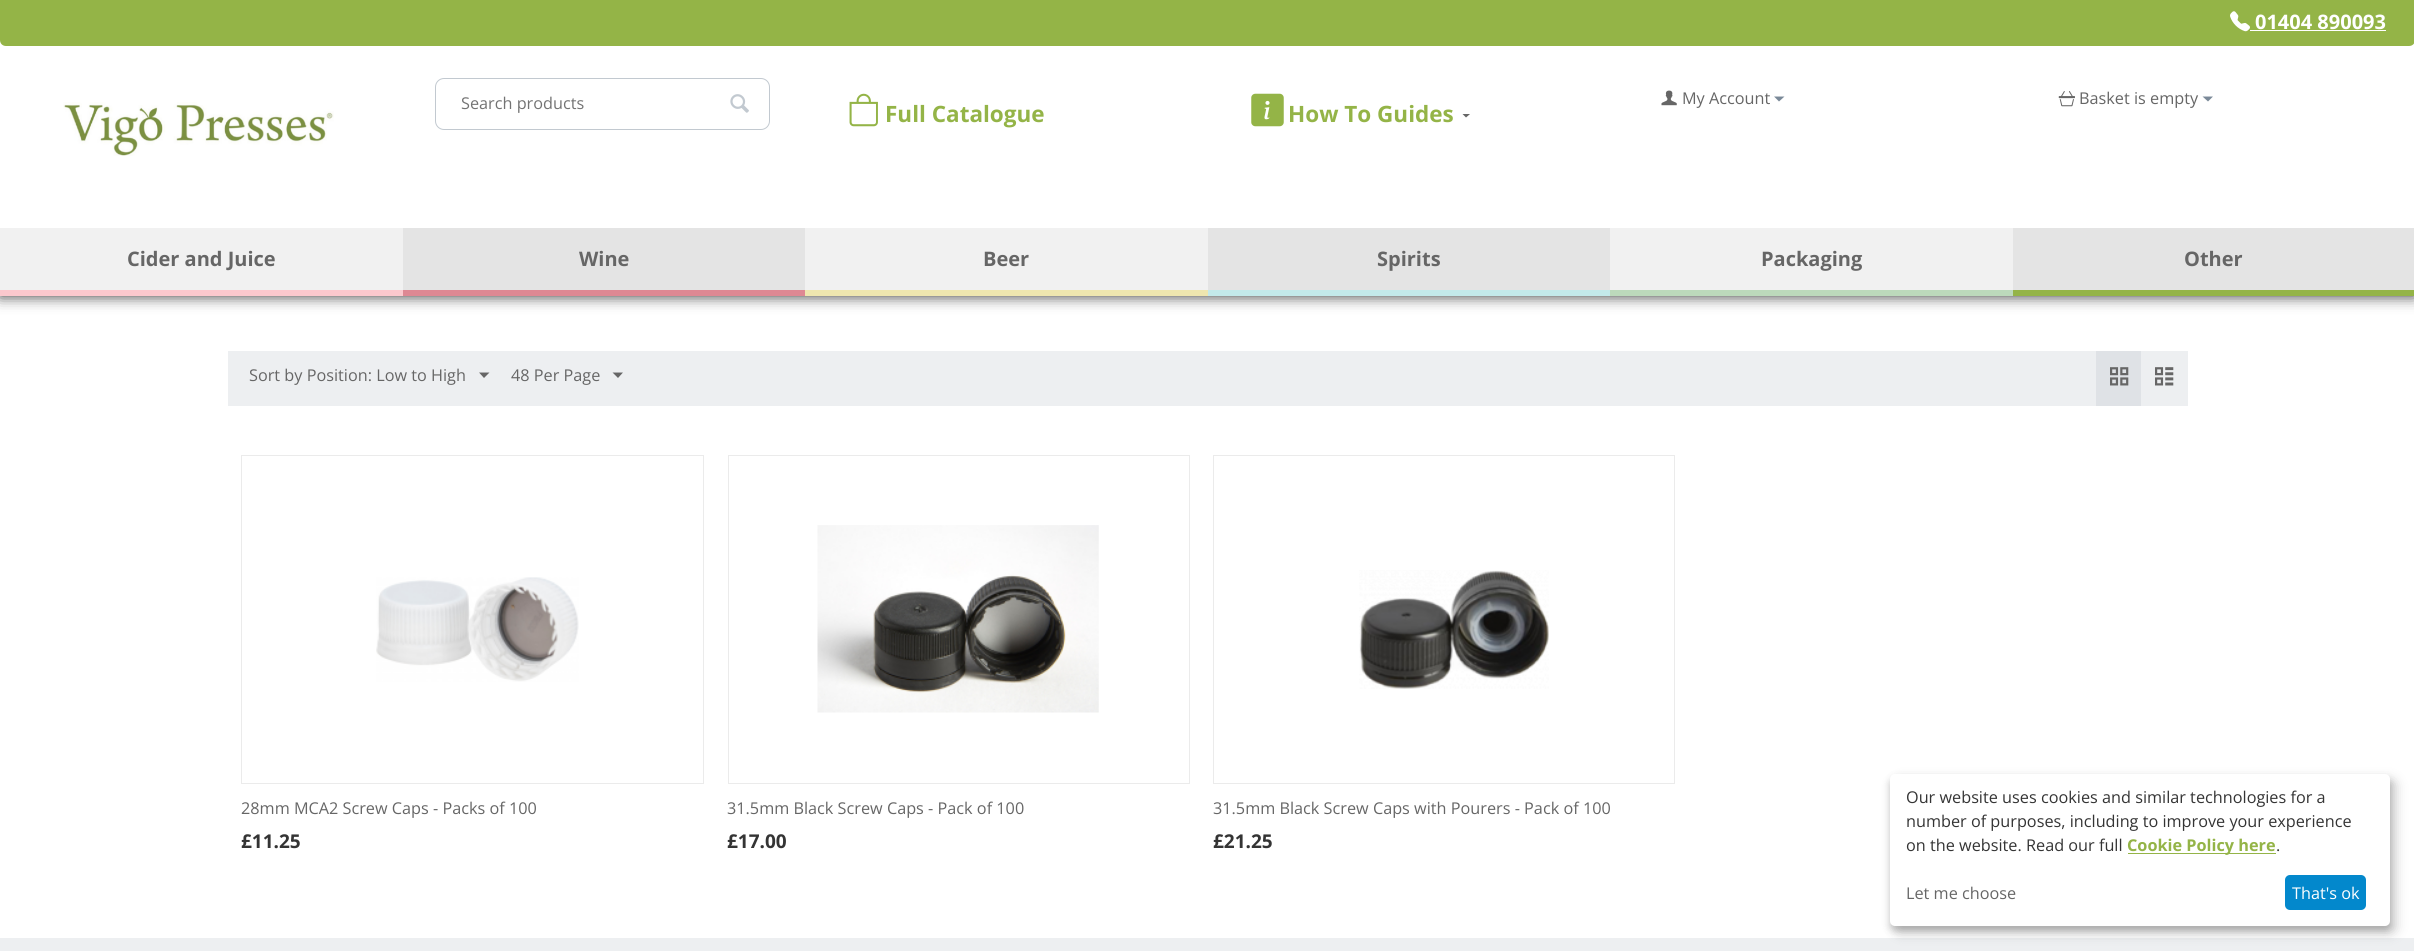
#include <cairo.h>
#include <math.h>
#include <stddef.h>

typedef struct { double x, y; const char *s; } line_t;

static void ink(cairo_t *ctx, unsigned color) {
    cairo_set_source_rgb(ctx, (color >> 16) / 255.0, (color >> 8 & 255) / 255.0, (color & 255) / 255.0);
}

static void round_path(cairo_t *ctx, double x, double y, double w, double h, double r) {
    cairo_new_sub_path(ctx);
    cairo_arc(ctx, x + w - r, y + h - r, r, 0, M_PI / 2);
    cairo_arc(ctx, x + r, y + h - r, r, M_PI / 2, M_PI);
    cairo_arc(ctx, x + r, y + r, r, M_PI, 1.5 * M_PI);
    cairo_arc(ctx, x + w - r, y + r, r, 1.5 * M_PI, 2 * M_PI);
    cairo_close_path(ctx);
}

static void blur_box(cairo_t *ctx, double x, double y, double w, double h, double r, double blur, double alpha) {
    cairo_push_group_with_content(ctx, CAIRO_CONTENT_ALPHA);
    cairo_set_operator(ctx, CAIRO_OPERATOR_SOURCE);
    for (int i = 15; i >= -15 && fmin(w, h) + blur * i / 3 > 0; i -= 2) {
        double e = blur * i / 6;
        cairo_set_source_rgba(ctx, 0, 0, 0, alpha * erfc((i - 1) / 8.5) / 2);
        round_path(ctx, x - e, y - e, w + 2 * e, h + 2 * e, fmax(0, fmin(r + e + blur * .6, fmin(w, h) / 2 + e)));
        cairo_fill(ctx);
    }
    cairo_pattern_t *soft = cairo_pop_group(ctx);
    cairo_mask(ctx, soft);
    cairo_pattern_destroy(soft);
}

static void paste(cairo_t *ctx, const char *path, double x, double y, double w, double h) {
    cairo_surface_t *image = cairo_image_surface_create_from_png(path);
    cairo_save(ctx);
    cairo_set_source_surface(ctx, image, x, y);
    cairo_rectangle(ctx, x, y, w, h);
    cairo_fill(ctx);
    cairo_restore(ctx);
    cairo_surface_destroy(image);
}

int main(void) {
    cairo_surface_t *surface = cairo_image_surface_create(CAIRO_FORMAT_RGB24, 2414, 951);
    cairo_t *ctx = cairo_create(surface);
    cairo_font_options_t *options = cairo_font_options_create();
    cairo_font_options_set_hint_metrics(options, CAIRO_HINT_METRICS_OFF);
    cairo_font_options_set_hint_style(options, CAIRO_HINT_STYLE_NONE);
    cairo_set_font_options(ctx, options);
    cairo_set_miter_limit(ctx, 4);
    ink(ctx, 0xFFFFFF);
    cairo_paint(ctx);
    ink(ctx, 0x333333);
    blur_box(ctx, 0, 0, 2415, 296, 0, 7.5, 1);
    ink(ctx, 0xFFFFFF);
    cairo_rectangle(ctx, 0, 40, 2414, 188);
    cairo_fill(ctx);
    ink(ctx, 0x94B447);
    cairo_new_path(ctx);
    cairo_move_to(ctx, 0, 0);
    cairo_line_to(ctx, 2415, 0);
    cairo_line_to(ctx, 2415, 40);
    cairo_curve_to(ctx, 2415, 43.5, 2412.5, 46, 2409, 46);
    cairo_line_to(ctx, 6, 46);
    cairo_curve_to(ctx, 2.5, 46, 0, 43.5, 0, 40);
    cairo_close_path(ctx);
    cairo_fill(ctx);
    paste(ctx, "media/1.png", 2230, 11, 20, 21);
    cairo_select_font_face(ctx, "Open Sans", CAIRO_FONT_SLANT_NORMAL, CAIRO_FONT_WEIGHT_BOLD);
    cairo_set_font_size(ctx, 20);
    ink(ctx, 0xFFFFFF);
    cairo_move_to(ctx, 2255, 29);
    cairo_show_text(ctx, "01404 890093");
    cairo_rectangle(ctx, 2250, 30, 136, 1);
    cairo_fill(ctx);
    paste(ctx, "media/2.png", 63, 102, 271, 54);
    round_path(ctx, 435.5, 78.5, 334, 51, 8.5);
    ink(ctx, 0xC2C9D0);
    cairo_set_line_width(ctx, 1);
    cairo_stroke(ctx);
    cairo_select_font_face(ctx, "Open Sans", CAIRO_FONT_SLANT_NORMAL, CAIRO_FONT_WEIGHT_NORMAL);
    cairo_set_font_size(ctx, 16.25);
    ink(ctx, 0x737373);
    cairo_move_to(ctx, 461, 109);
    cairo_show_text(ctx, "Search products");
    paste(ctx, "media/3.png", 730, 94, 19, 19);
    paste(ctx, "media/4.png", 849, 93, 29, 34);
    cairo_select_font_face(ctx, "Open Sans", CAIRO_FONT_SLANT_NORMAL, CAIRO_FONT_WEIGHT_BOLD);
    cairo_set_font_size(ctx, 22.5);
    ink(ctx, 0x94B447);
    cairo_move_to(ctx, 885, 122);
    cairo_show_text(ctx, "Full Catalogue");
    paste(ctx, "media/5.png", 1251, 93, 33, 34);
    cairo_move_to(ctx, 1288, 122);
    cairo_show_text(ctx, "How To Guides");
    ink(ctx, 0x666666);
    cairo_new_path(ctx);
    cairo_move_to(ctx, 1462.5, 114);
    cairo_line_to(ctx, 1470, 114);
    cairo_line_to(ctx, 1466, 117.5);
    cairo_close_path(ctx);
    cairo_fill(ctx);
    paste(ctx, "media/6.png", 1661, 90, 16, 16);
    cairo_select_font_face(ctx, "Open Sans", CAIRO_FONT_SLANT_NORMAL, CAIRO_FONT_WEIGHT_NORMAL);
    cairo_set_font_size(ctx, 16.25);
    cairo_move_to(ctx, 1682, 104);
    cairo_show_text(ctx, "My Account");
    ink(ctx, 0x7A8998);
    cairo_new_path(ctx);
    cairo_move_to(ctx, 1779, 101.5);
    cairo_line_to(ctx, 1774, 96.5);
    cairo_line_to(ctx, 1784.5, 96.5);
    cairo_close_path(ctx);
    cairo_fill(ctx);
    paste(ctx, "media/7.png", 2058, 91, 17, 16);
    ink(ctx, 0x666666);
    cairo_move_to(ctx, 2079, 104);
    cairo_show_text(ctx, "Basket is empty");
    ink(ctx, 0x7A8998);
    cairo_new_path(ctx);
    cairo_move_to(ctx, 2208, 101.5);
    cairo_line_to(ctx, 2202.5, 96.5);
    cairo_line_to(ctx, 2213, 96.5);
    cairo_close_path(ctx);
    cairo_fill(ctx);
    ink(ctx, 0xF1F1F1);
    cairo_rectangle(ctx, 0, 228, 403, 62);
    cairo_fill(ctx);
    ink(ctx, 0xFBC8CD);
    cairo_rectangle(ctx, 0, 290, 403, 6);
    cairo_fill(ctx);
    cairo_select_font_face(ctx, "Open Sans", CAIRO_FONT_SLANT_NORMAL, CAIRO_FONT_WEIGHT_BOLD);
    cairo_set_font_size(ctx, 20);
    ink(ctx, 0x666666);
    cairo_move_to(ctx, 127, 266);
    cairo_show_text(ctx, "Cider and Juice");
    ink(ctx, 0xE4E4E4);
    cairo_rectangle(ctx, 403, 228, 402, 62);
    cairo_fill(ctx);
    ink(ctx, 0xDE8893);
    cairo_rectangle(ctx, 403, 290, 402, 6);
    cairo_fill(ctx);
    ink(ctx, 0x666666);
    cairo_move_to(ctx, 579, 266);
    cairo_show_text(ctx, "Wine");
    ink(ctx, 0xF1F1F1);
    cairo_rectangle(ctx, 805, 228, 403, 62);
    cairo_fill(ctx);
    ink(ctx, 0xEEE6AF);
    cairo_rectangle(ctx, 805, 290, 403, 6);
    cairo_fill(ctx);
    ink(ctx, 0x666666);
    cairo_move_to(ctx, 983, 266);
    cairo_show_text(ctx, "Beer");
    ink(ctx, 0xE4E4E4);
    cairo_rectangle(ctx, 1208, 228, 402, 62);
    cairo_fill(ctx);
    ink(ctx, 0xC3E9EA);
    cairo_rectangle(ctx, 1208, 290, 402, 6);
    cairo_fill(ctx);
    ink(ctx, 0x666666);
    cairo_move_to(ctx, 1377, 266);
    cairo_show_text(ctx, "Spirits");
    ink(ctx, 0xF1F1F1);
    cairo_rectangle(ctx, 1610, 228, 403, 62);
    cairo_fill(ctx);
    ink(ctx, 0xBCD9BB);
    cairo_rectangle(ctx, 1610, 290, 403, 6);
    cairo_fill(ctx);
    ink(ctx, 0x666666);
    cairo_move_to(ctx, 1761, 266);
    cairo_show_text(ctx, "Packaging");
    ink(ctx, 0xE4E4E4);
    cairo_rectangle(ctx, 2013, 228, 401, 62);
    cairo_fill(ctx);
    ink(ctx, 0x94B447);
    cairo_rectangle(ctx, 2013, 290, 401, 6);
    cairo_fill(ctx);
    ink(ctx, 0x666666);
    cairo_move_to(ctx, 2184, 266);
    cairo_show_text(ctx, "Other");
    ink(ctx, 0xEDEFF1);
    cairo_rectangle(ctx, 228, 351, 1960, 55);
    cairo_fill(ctx);
    cairo_select_font_face(ctx, "Open Sans", CAIRO_FONT_SLANT_NORMAL, CAIRO_FONT_WEIGHT_NORMAL);
    cairo_set_font_size(ctx, 16.25);
    ink(ctx, 0x666666);
    cairo_move_to(ctx, 249, 381);
    cairo_show_text(ctx, "Sort by Position: Low to High");
    cairo_new_path(ctx);
    cairo_move_to(ctx, 484, 378);
    cairo_line_to(ctx, 479, 372.5);
    cairo_line_to(ctx, 489.5, 372.5);
    cairo_close_path(ctx);
    cairo_fill(ctx);
    cairo_move_to(ctx, 511, 381);
    cairo_show_text(ctx, "48 Per Page");
    cairo_new_path(ctx);
    cairo_move_to(ctx, 618, 378);
    cairo_line_to(ctx, 612.5, 372.5);
    cairo_line_to(ctx, 623, 372.5);
    cairo_close_path(ctx);
    cairo_fill(ctx);
    ink(ctx, 0xDFE2E6);
    cairo_rectangle(ctx, 2096, 351, 45, 55);
    cairo_fill(ctx);
    paste(ctx, "media/8.png", 2110, 367, 19, 19);
    paste(ctx, "media/9.png", 2155, 367, 19, 19);
    cairo_rectangle(ctx, 241.5, 455.5, 462, 328);
    ink(ctx, 0xEBEBEB);
    cairo_stroke(ctx);
    paste(ctx, "media/10.png", 376, 577, 203, 105);
    ink(ctx, 0x666666);
    cairo_move_to(ctx, 241, 814);
    cairo_show_text(ctx, "28mm MCA2 Screw Caps - Packs of 100");
    cairo_select_font_face(ctx, "Open Sans", CAIRO_FONT_SLANT_NORMAL, CAIRO_FONT_WEIGHT_BOLD);
    cairo_set_font_size(ctx, 19);
    ink(ctx, 0x343434);
    cairo_move_to(ctx, 241, 848);
    cairo_show_text(ctx, "£11.25");
    cairo_rectangle(ctx, 728.5, 455.5, 461, 328);
    ink(ctx, 0xEBEBEB);
    cairo_stroke(ctx);
    paste(ctx, "media/11.png", 817, 525, 282, 188);
    cairo_select_font_face(ctx, "Open Sans", CAIRO_FONT_SLANT_NORMAL, CAIRO_FONT_WEIGHT_NORMAL);
    cairo_set_font_size(ctx, 16.25);
    ink(ctx, 0x666666);
    cairo_move_to(ctx, 727, 814);
    cairo_show_text(ctx, "31.5mm Black Screw Caps - Pack of 100");
    cairo_select_font_face(ctx, "Open Sans", CAIRO_FONT_SLANT_NORMAL, CAIRO_FONT_WEIGHT_BOLD);
    cairo_set_font_size(ctx, 19);
    ink(ctx, 0x343434);
    cairo_move_to(ctx, 727, 848);
    cairo_show_text(ctx, "£17.00");
    cairo_rectangle(ctx, 1213.5, 455.5, 461, 328);
    ink(ctx, 0xEBEBEB);
    cairo_stroke(ctx);
    paste(ctx, "media/12.png", 1359, 570, 190, 119);
    cairo_select_font_face(ctx, "Open Sans", CAIRO_FONT_SLANT_NORMAL, CAIRO_FONT_WEIGHT_NORMAL);
    cairo_set_font_size(ctx, 16.25);
    ink(ctx, 0x666666);
    cairo_move_to(ctx, 1213, 814);
    cairo_show_text(ctx, "31.5mm Black Screw Caps with Pourers - Pack of 100");
    cairo_select_font_face(ctx, "Open Sans", CAIRO_FONT_SLANT_NORMAL, CAIRO_FONT_WEIGHT_BOLD);
    cairo_set_font_size(ctx, 19);
    ink(ctx, 0x343434);
    cairo_move_to(ctx, 1213, 848);
    cairo_show_text(ctx, "£21.25");
    ink(ctx, 0xEDEFF1);
    cairo_rectangle(ctx, 0, 938, 2414, 13);
    cairo_fill(ctx);
    ink(ctx, 0x000000);
    blur_box(ctx, 1896, 780, 500, 153, 5, 6, 0.19);
    blur_box(ctx, 1890, 779, 500, 152, 5, 4, 0.2);
    ink(ctx, 0xFFFFFF);
    round_path(ctx, 1890, 774, 500, 152, 5);
    cairo_fill(ctx);
    cairo_select_font_face(ctx, "Open Sans", CAIRO_FONT_SLANT_NORMAL, CAIRO_FONT_WEIGHT_NORMAL);
    cairo_set_font_size(ctx, 16.25);
    ink(ctx, 0x343434);
    {
        static const line_t items[] = {
            {1906, 803, "Our website uses cookies and similar technologies for a"},
            {1906, 827, "number of purposes, including to improve your experience"},
            {1906, 851, "on the website. Read our full"},
        };
        for (size_t i = 0; i < sizeof items / sizeof *items; i++) {
            cairo_move_to(ctx, items[i].x, items[i].y);
            cairo_show_text(ctx, items[i].s);
        }
    }
    ink(ctx, 0x94B447);
    cairo_rectangle(ctx, 2128, 853, 148, 1);
    cairo_fill(ctx);
    cairo_select_font_face(ctx, "Open Sans", CAIRO_FONT_SLANT_NORMAL, CAIRO_FONT_WEIGHT_BOLD);
    cairo_move_to(ctx, 2127, 851);
    cairo_show_text(ctx, "Cookie Policy here");
    cairo_select_font_face(ctx, "Open Sans", CAIRO_FONT_SLANT_NORMAL, CAIRO_FONT_WEIGHT_NORMAL);
    ink(ctx, 0x343434);
    cairo_move_to(ctx, 2276, 851);
    cairo_show_text(ctx, ".");
    ink(ctx, 0x666666);
    cairo_move_to(ctx, 1906, 899);
    cairo_show_text(ctx, "Let me choose");
    ink(ctx, 0x0388CC);
    round_path(ctx, 2285, 875, 81, 35, 5);
    cairo_fill(ctx);
    ink(ctx, 0xFFFFFF);
    cairo_move_to(ctx, 2292, 899);
    cairo_show_text(ctx, "That's ok");
    cairo_surface_write_to_png(surface, "image.png");
    cairo_font_options_destroy(options);
    cairo_destroy(ctx);
    cairo_surface_destroy(surface);
    return 0;
}
